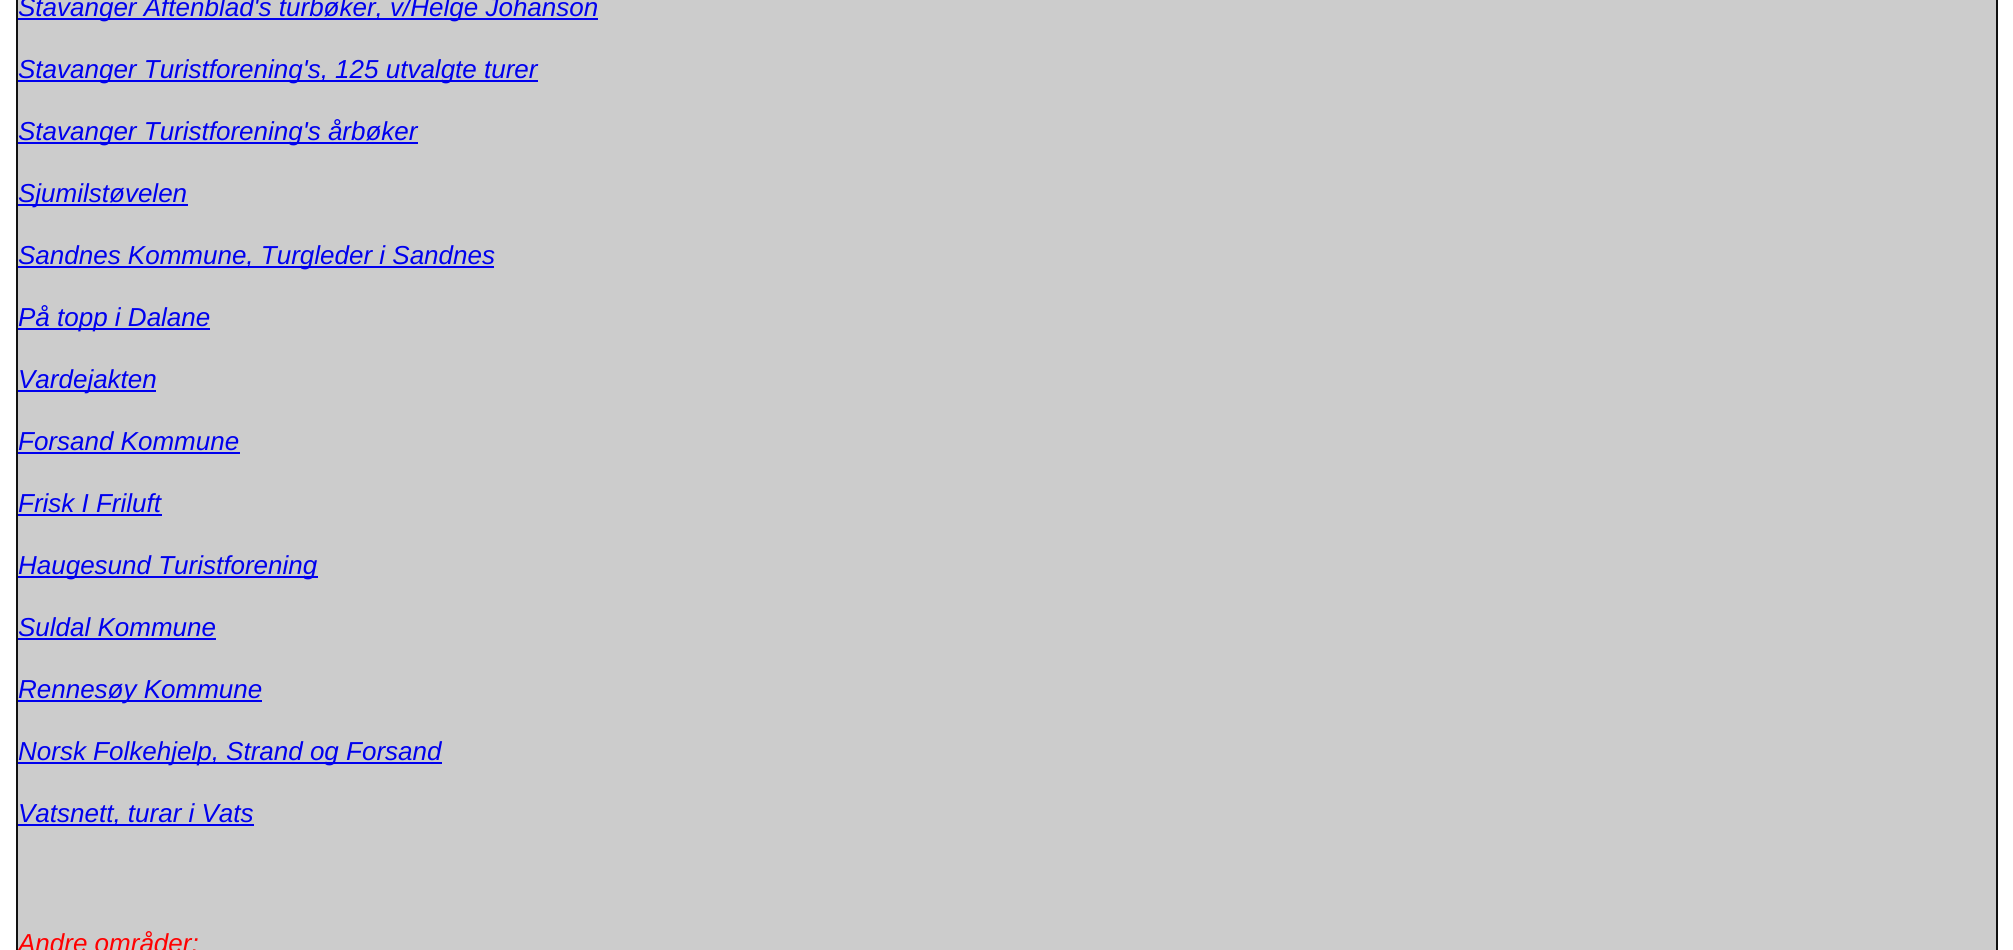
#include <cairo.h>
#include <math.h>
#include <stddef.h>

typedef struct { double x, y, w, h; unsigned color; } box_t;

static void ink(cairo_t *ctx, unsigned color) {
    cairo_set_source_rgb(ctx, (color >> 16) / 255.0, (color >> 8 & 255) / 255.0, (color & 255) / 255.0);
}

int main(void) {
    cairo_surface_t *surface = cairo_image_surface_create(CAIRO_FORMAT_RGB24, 2013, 950);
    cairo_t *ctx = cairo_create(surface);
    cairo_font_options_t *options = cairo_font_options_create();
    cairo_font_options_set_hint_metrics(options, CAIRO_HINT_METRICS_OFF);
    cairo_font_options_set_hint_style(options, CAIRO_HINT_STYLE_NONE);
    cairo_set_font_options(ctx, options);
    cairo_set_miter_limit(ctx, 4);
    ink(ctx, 0xFFFFFF);
    cairo_paint(ctx);
    {
        static const box_t items[] = {
            {1996, 0, 2, 950, 0x111111},
            {16, 0, 2, 950, 0x111111},
            {18, 0, 1978, 950, 0xCCCCCC},
            {18, 18, 580, 2, 0x0000EE},
        };
        for (size_t i = 0; i < sizeof items / sizeof *items; i++) {
            ink(ctx, items[i].color);
            cairo_rectangle(ctx, items[i].x, items[i].y, items[i].w, items[i].h);
            cairo_fill(ctx);
        }
    }
    cairo_select_font_face(ctx, "Liberation Sans", CAIRO_FONT_SLANT_ITALIC, CAIRO_FONT_WEIGHT_NORMAL);
    cairo_set_font_size(ctx, 26);
    cairo_move_to(ctx, 18, 16);
    cairo_show_text(ctx, "Stavanger Aftenblad's turbøker, v/Helge Johanson");
    cairo_rectangle(ctx, 18, 80, 520, 2);
    cairo_fill(ctx);
    cairo_move_to(ctx, 18, 78);
    cairo_show_text(ctx, "Stavanger Turistforening's, 125 utvalgte turer");
    cairo_rectangle(ctx, 18, 142, 400, 2);
    cairo_fill(ctx);
    cairo_move_to(ctx, 18, 140);
    cairo_show_text(ctx, "Stavanger Turistforening's årbøker");
    cairo_rectangle(ctx, 18, 204, 170, 2);
    cairo_fill(ctx);
    cairo_move_to(ctx, 18, 202);
    cairo_show_text(ctx, "Sjumilstøvelen");
    cairo_rectangle(ctx, 18, 266, 476, 2);
    cairo_fill(ctx);
    cairo_move_to(ctx, 18, 264);
    cairo_show_text(ctx, "Sandnes Kommune, Turgleder i Sandnes");
    cairo_rectangle(ctx, 18, 328, 192, 2);
    cairo_fill(ctx);
    cairo_move_to(ctx, 18, 326);
    cairo_show_text(ctx, "På topp i Dalane");
    cairo_rectangle(ctx, 18, 390, 138, 2);
    cairo_fill(ctx);
    cairo_move_to(ctx, 18, 388);
    cairo_show_text(ctx, "Vardejakten");
    cairo_move_to(ctx, 18, 450);
    cairo_show_text(ctx, "Forsand Kommune");
    cairo_rectangle(ctx, 18, 452, 222, 2);
    cairo_fill(ctx);
    cairo_move_to(ctx, 18, 512);
    cairo_show_text(ctx, "Frisk I Friluft");
    cairo_rectangle(ctx, 18, 514, 144, 2);
    cairo_fill(ctx);
    cairo_rectangle(ctx, 18, 576, 300, 2);
    cairo_fill(ctx);
    cairo_move_to(ctx, 18, 574);
    cairo_show_text(ctx, "Haugesund Turistforening");
    cairo_move_to(ctx, 18, 636);
    cairo_show_text(ctx, "Suldal Kommune");
    cairo_rectangle(ctx, 18, 638, 198, 2);
    cairo_fill(ctx);
    cairo_rectangle(ctx, 18, 700, 244, 2);
    cairo_fill(ctx);
    cairo_move_to(ctx, 18, 698);
    cairo_show_text(ctx, "Rennesøy Kommune");
    cairo_rectangle(ctx, 18, 762, 424, 2);
    cairo_fill(ctx);
    cairo_move_to(ctx, 18, 760);
    cairo_show_text(ctx, "Norsk Folkehjelp, Strand og Forsand");
    cairo_rectangle(ctx, 18, 824, 236, 2);
    cairo_fill(ctx);
    cairo_move_to(ctx, 18, 822);
    cairo_show_text(ctx, "Vatsnett, turar i Vats");
    ink(ctx, 0xFF0000);
    cairo_move_to(ctx, 18, 952);
    cairo_show_text(ctx, "Andre områder:");
    cairo_surface_write_to_png(surface, "image.png");
    cairo_font_options_destroy(options);
    cairo_destroy(ctx);
    cairo_surface_destroy(surface);
    return 0;
}
